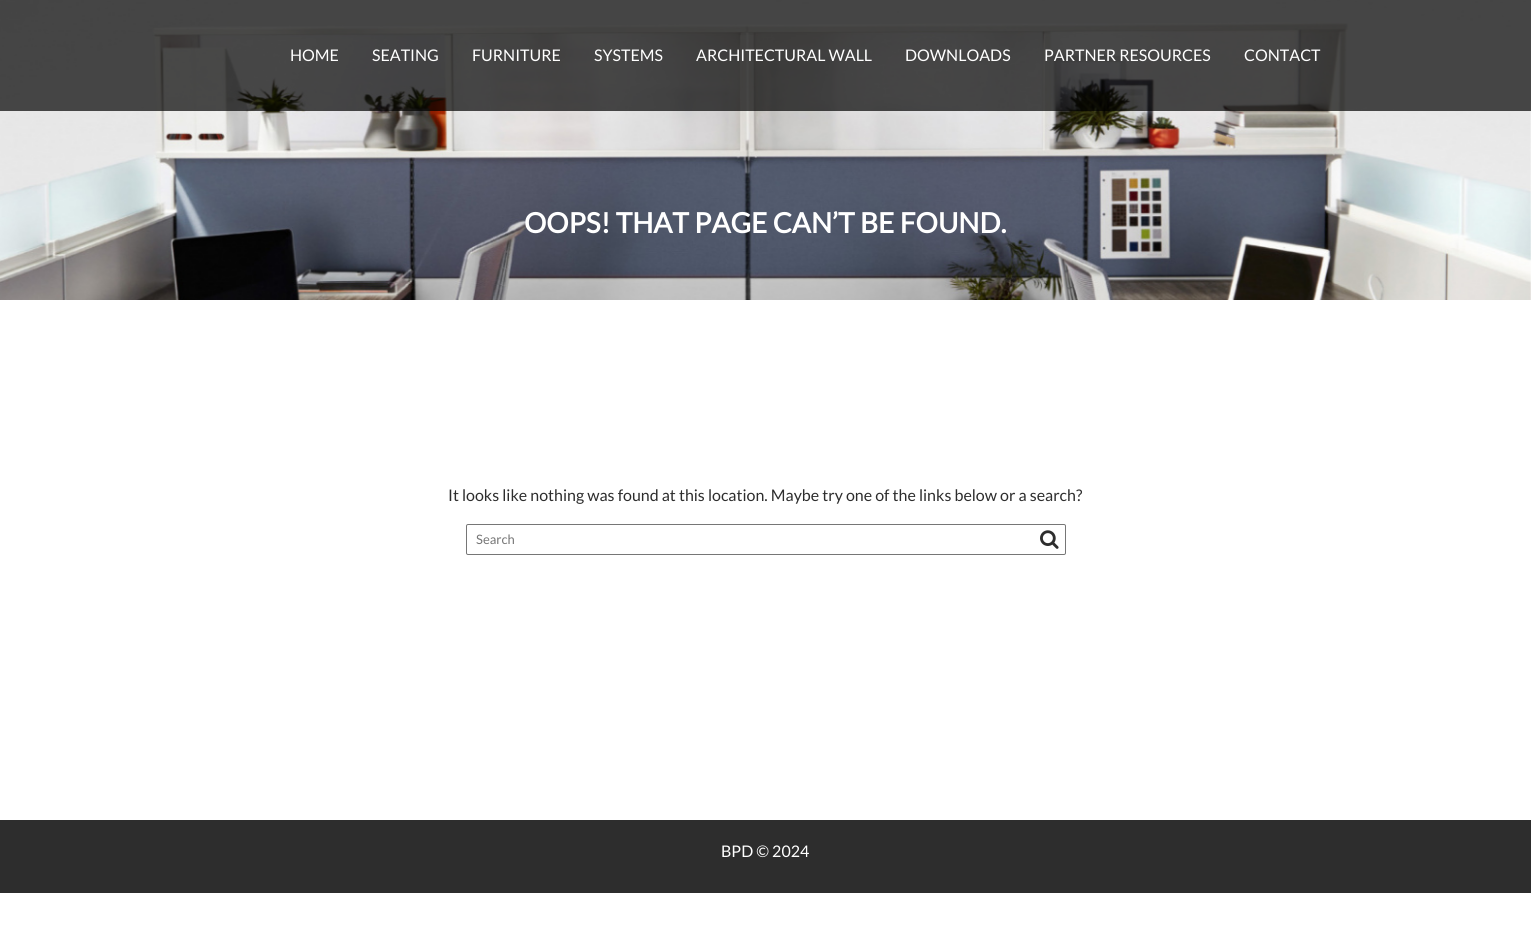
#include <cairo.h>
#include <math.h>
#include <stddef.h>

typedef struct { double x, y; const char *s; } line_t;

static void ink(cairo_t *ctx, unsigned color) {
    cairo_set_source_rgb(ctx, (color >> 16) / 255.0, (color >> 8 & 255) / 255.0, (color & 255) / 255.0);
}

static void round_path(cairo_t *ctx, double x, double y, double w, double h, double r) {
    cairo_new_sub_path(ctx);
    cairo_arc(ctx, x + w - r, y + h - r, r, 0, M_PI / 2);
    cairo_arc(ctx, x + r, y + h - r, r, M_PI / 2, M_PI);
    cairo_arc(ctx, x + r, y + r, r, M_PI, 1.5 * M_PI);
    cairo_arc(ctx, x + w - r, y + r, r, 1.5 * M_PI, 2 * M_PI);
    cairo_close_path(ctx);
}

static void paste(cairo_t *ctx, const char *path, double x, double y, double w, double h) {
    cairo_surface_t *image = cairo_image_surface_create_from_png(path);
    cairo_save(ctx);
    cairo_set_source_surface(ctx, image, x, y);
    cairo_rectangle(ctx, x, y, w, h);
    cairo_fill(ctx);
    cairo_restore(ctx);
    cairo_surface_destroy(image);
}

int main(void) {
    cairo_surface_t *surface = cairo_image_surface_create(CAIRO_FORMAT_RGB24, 1531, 946);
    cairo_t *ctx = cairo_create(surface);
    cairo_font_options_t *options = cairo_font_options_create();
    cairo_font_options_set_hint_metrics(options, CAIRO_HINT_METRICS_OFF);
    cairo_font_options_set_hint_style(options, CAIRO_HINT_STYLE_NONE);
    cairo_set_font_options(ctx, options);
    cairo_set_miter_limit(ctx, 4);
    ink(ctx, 0xFFFFFF);
    cairo_paint(ctx);
    paste(ctx, "media/1.png", 0, 0, 1531, 300);
    cairo_set_source_rgba(ctx, 0, 0, 0, 0.7);
    cairo_rectangle(ctx, 0, 0, 1531, 111);
    cairo_fill(ctx);
    cairo_select_font_face(ctx, "Lato", CAIRO_FONT_SLANT_NORMAL, CAIRO_FONT_WEIGHT_NORMAL);
    cairo_set_font_size(ctx, 16);
    ink(ctx, 0xFFFFFF);
    {
        static const line_t items[] = {
            {290, 61, "HOME"},
            {372, 61, "SEATING"},
            {472, 61, "FURNITURE"},
            {594, 61, "SYSTEMS"},
            {696, 61, "ARCHITECTURAL WALL"},
            {905, 61, "DOWNLOADS"},
            {1044, 61, "PARTNER RESOURCES"},
            {1244, 61, "CONTACT"},
        };
        for (size_t i = 0; i < sizeof items / sizeof *items; i++) {
            cairo_move_to(ctx, items[i].x, items[i].y);
            cairo_show_text(ctx, items[i].s);
        }
    }
    cairo_select_font_face(ctx, "Lato", CAIRO_FONT_SLANT_NORMAL, CAIRO_FONT_WEIGHT_BOLD);
    cairo_set_font_size(ctx, 28);
    cairo_move_to(ctx, 524, 233);
    cairo_show_text(ctx, "OOPS! THAT PAGE CAN’T BE FOUND.");
    cairo_select_font_face(ctx, "Lato", CAIRO_FONT_SLANT_NORMAL, CAIRO_FONT_WEIGHT_NORMAL);
    cairo_set_font_size(ctx, 16);
    ink(ctx, 0x2D2D2D);
    cairo_move_to(ctx, 448, 501);
    cairo_show_text(ctx, "It looks like nothing was found at this location. Maybe try one of the links below or a search?");
    round_path(ctx, 466.5, 524.5, 599, 30, 1.5);
    ink(ctx, 0x767676);
    cairo_set_line_width(ctx, 1);
    cairo_stroke(ctx);
    cairo_set_font_size(ctx, 13);
    ink(ctx, 0x757575);
    cairo_move_to(ctx, 476, 544);
    cairo_show_text(ctx, "Search");
    paste(ctx, "media/2.png", 1040, 530, 19, 19);
    ink(ctx, 0x2D2D2D);
    cairo_rectangle(ctx, 0, 820, 1531, 73);
    cairo_fill(ctx);
    cairo_set_font_size(ctx, 16);
    ink(ctx, 0xFFFFFF);
    cairo_move_to(ctx, 721, 857);
    cairo_show_text(ctx, "BPD © 2024");
    cairo_surface_write_to_png(surface, "image.png");
    cairo_font_options_destroy(options);
    cairo_destroy(ctx);
    cairo_surface_destroy(surface);
    return 0;
}
